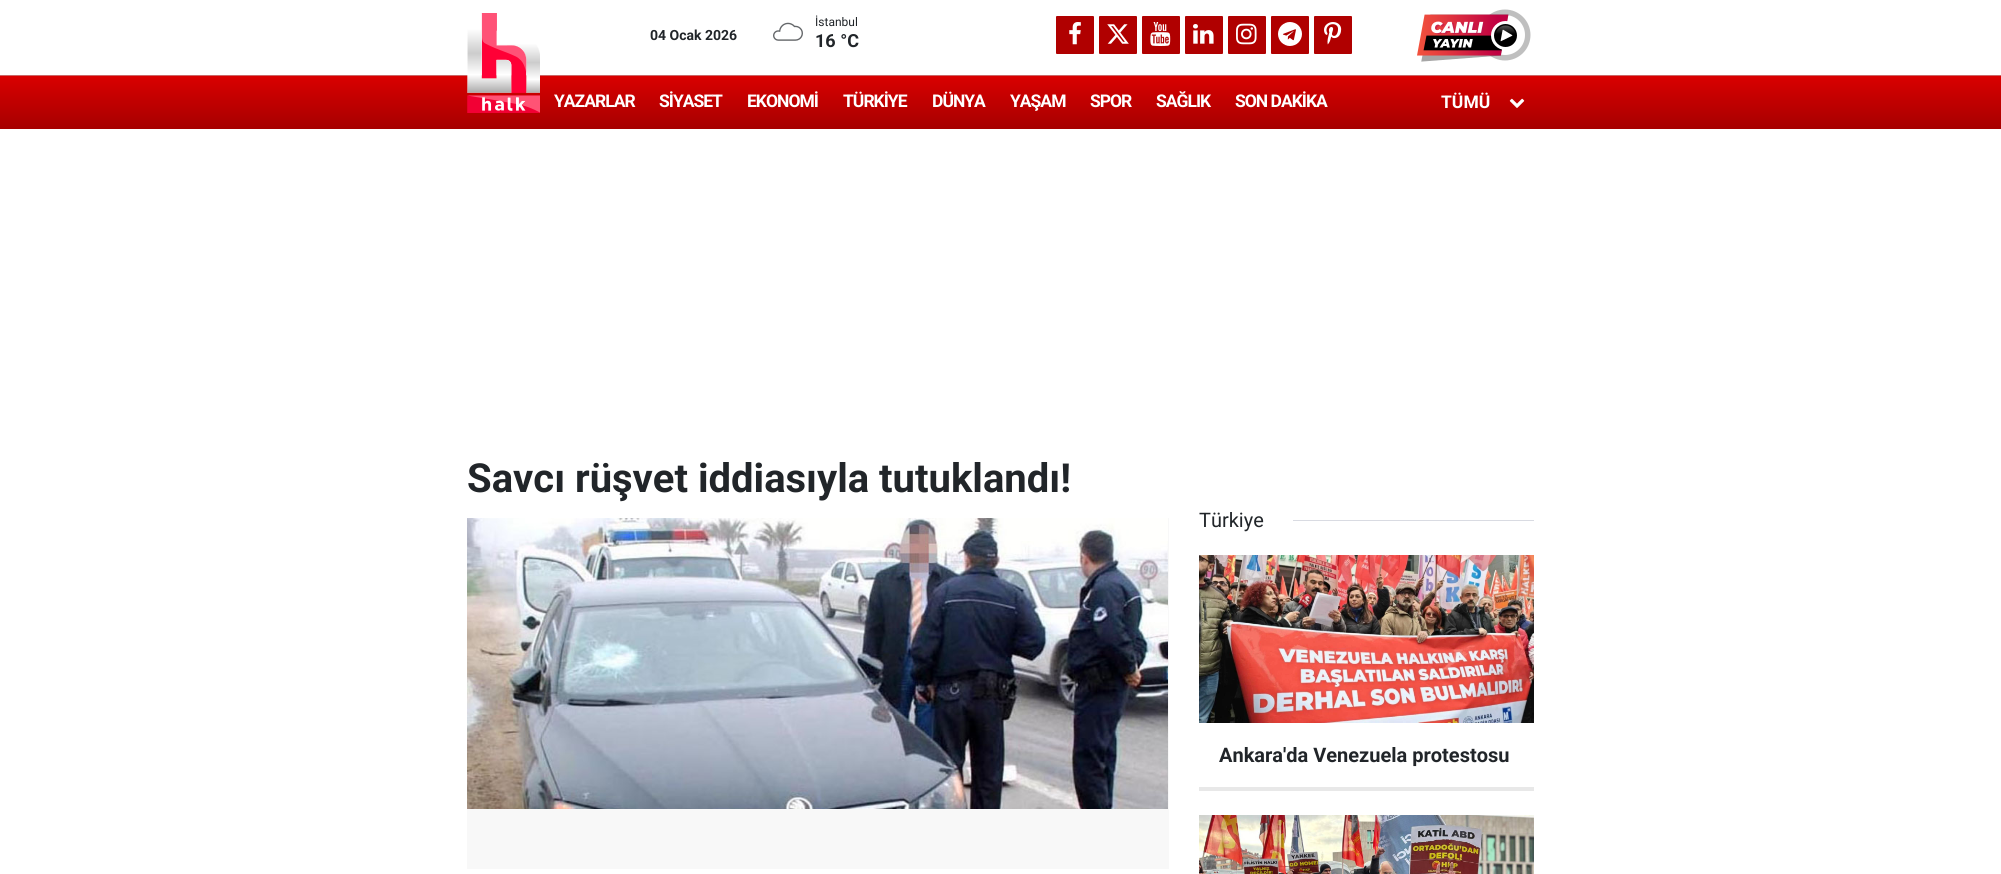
#include <cairo.h>
#include <math.h>
#include <stddef.h>

typedef struct { double x, y; const char *s; } line_t;

static void ink(cairo_t *ctx, unsigned color) {
    cairo_set_source_rgb(ctx, (color >> 16) / 255.0, (color >> 8 & 255) / 255.0, (color & 255) / 255.0);
}

static void write_spaced(cairo_t *ctx, double x, double y, const char *s, double letter, double word) {
    cairo_move_to(ctx, x, y);
    while (*s) {
        char ch[5] = {0};
        int n = 0;
        do ch[n++] = *s++; while ((*s & 0xC0) == 0x80);
        cairo_show_text(ctx, ch);
        cairo_rel_move_to(ctx, letter + word * (*ch == ' '), 0);
    }
}

static void round_path(cairo_t *ctx, double x, double y, double w, double h, double r) {
    cairo_new_sub_path(ctx);
    cairo_arc(ctx, x + w - r, y + h - r, r, 0, M_PI / 2);
    cairo_arc(ctx, x + r, y + h - r, r, M_PI / 2, M_PI);
    cairo_arc(ctx, x + r, y + r, r, M_PI, 1.5 * M_PI);
    cairo_arc(ctx, x + w - r, y + r, r, 1.5 * M_PI, 2 * M_PI);
    cairo_close_path(ctx);
}

static void paste(cairo_t *ctx, const char *path, double x, double y, double w, double h) {
    cairo_surface_t *image = cairo_image_surface_create_from_png(path);
    cairo_save(ctx);
    cairo_set_source_surface(ctx, image, x, y);
    cairo_rectangle(ctx, x, y, w, h);
    cairo_fill(ctx);
    cairo_restore(ctx);
    cairo_surface_destroy(image);
}

int main(void) {
    cairo_surface_t *surface = cairo_image_surface_create(CAIRO_FORMAT_RGB24, 2001, 874);
    cairo_t *ctx = cairo_create(surface);
    cairo_font_options_t *options = cairo_font_options_create();
    cairo_font_options_set_hint_metrics(options, CAIRO_HINT_METRICS_OFF);
    cairo_font_options_set_hint_style(options, CAIRO_HINT_STYLE_NONE);
    cairo_set_font_options(ctx, options);
    cairo_set_miter_limit(ctx, 4);
    cairo_pattern_t *gradient;
    ink(ctx, 0xFFFFFF);
    cairo_paint(ctx);
    gradient = cairo_pattern_create_linear(1001, 129, 1001, 76);
    cairo_pattern_add_color_stop_rgba(gradient, 0, 0.651, 0, 0, 1);
    cairo_pattern_add_color_stop_rgba(gradient, 1, 0.851, 0, 0, 1);
    cairo_set_source(ctx, gradient);
    cairo_pattern_destroy(gradient);
    cairo_rectangle(ctx, 0, 76, 2001, 53);
    cairo_fill(ctx);
    ink(ctx, 0xCA6666);
    cairo_rectangle(ctx, 0, 75, 2001, 1);
    cairo_fill(ctx);
    paste(ctx, "media/1.png", 467, 13, 73, 100);
    cairo_select_font_face(ctx, "Roboto", CAIRO_FONT_SLANT_NORMAL, CAIRO_FONT_WEIGHT_BOLD);
    cairo_set_font_size(ctx, 14);
    ink(ctx, 0x212529);
    cairo_move_to(ctx, 650, 40);
    cairo_show_text(ctx, "04 Ocak 2026");
    paste(ctx, "media/2.png", 773, 22, 30, 19);
    cairo_select_font_face(ctx, "Roboto", CAIRO_FONT_SLANT_NORMAL, CAIRO_FONT_WEIGHT_NORMAL);
    cairo_set_font_size(ctx, 12);
    cairo_move_to(ctx, 815, 26);
    cairo_show_text(ctx, "İstanbul");
    cairo_select_font_face(ctx, "Roboto", CAIRO_FONT_SLANT_NORMAL, CAIRO_FONT_WEIGHT_BOLD);
    cairo_set_font_size(ctx, 18);
    cairo_move_to(ctx, 815, 47);
    cairo_show_text(ctx, "16 °C");
    ink(ctx, 0xB00000);
    round_path(ctx, 1056, 16, 38, 38, 1);
    cairo_fill(ctx);
    paste(ctx, "media/3.png", 1069, 22, 12, 23);
    round_path(ctx, 1099, 16, 38, 38, 1);
    cairo_fill(ctx);
    paste(ctx, "media/4.png", 1107, 24, 22, 20);
    round_path(ctx, 1142, 16, 38, 38, 1);
    cairo_fill(ctx);
    paste(ctx, "media/5.png", 1150, 22, 21, 24);
    round_path(ctx, 1185, 16, 38, 38, 1);
    cairo_fill(ctx);
    paste(ctx, "media/6.png", 1193, 24, 21, 20);
    round_path(ctx, 1228, 16, 38, 38, 1);
    cairo_fill(ctx);
    paste(ctx, "media/7.png", 1236, 23, 21, 22);
    round_path(ctx, 1271, 16, 38, 38, 1);
    cairo_fill(ctx);
    paste(ctx, "media/8.png", 1278, 22, 24, 24);
    round_path(ctx, 1314, 16, 38, 38, 1);
    cairo_fill(ctx);
    paste(ctx, "media/9.png", 1324, 22, 18, 23);
    paste(ctx, "media/10.png", 1417, 9, 114, 53);
    cairo_set_font_size(ctx, 17.5);
    ink(ctx, 0xFFFFFF);
    {
        static const line_t items[] = {
            {554, 107, "YAZARLAR"},
            {659, 107, "SİYASET"},
            {747, 107, "EKONOMİ"},
            {843, 107, "TÜRKİYE"},
            {932, 107, "DÜNYA"},
            {1010, 107, "YAŞAM"},
            {1090, 107, "SPOR"},
            {1156, 107, "SAĞLIK"},
            {1235, 107, "SON DAKİKA"},
        };
        for (size_t i = 0; i < sizeof items / sizeof *items; i++) {
            write_spaced(ctx, items[i].x, items[i].y, items[i].s, -1, 0);
        }
    }
    cairo_move_to(ctx, 1441, 108);
    cairo_show_text(ctx, "TÜMÜ");
    paste(ctx, "media/11.png", 1509, 98, 16, 10);
    cairo_set_font_size(ctx, 40);
    ink(ctx, 0x212529);
    cairo_move_to(ctx, 467, 492);
    cairo_show_text(ctx, "Savcı rüşvet iddiasıyla tutuklandı!");
    ink(ctx, 0xF8F8F8);
    cairo_rectangle(ctx, 467, 518, 702, 351);
    cairo_fill(ctx);
    paste(ctx, "media/12.png", 467, 518, 701, 291);
    cairo_select_font_face(ctx, "Roboto", CAIRO_FONT_SLANT_NORMAL, CAIRO_FONT_WEIGHT_NORMAL);
    cairo_set_font_size(ctx, 20);
    ink(ctx, 0x212529);
    cairo_move_to(ctx, 1199, 527);
    cairo_show_text(ctx, "Türkiye");
    ink(ctx, 0xD9DBE2);
    cairo_rectangle(ctx, 1293, 520, 241, 1);
    cairo_fill(ctx);
    ink(ctx, 0xE8E8E8);
    cairo_rectangle(ctx, 1199, 787, 335, 4);
    cairo_fill(ctx);
    paste(ctx, "media/13.png", 1199, 555, 335, 168);
    cairo_select_font_face(ctx, "Roboto", CAIRO_FONT_SLANT_NORMAL, CAIRO_FONT_WEIGHT_BOLD);
    ink(ctx, 0x212529);
    cairo_move_to(ctx, 1219, 762);
    cairo_show_text(ctx, "Ankara'da Venezuela protestosu");
    paste(ctx, "media/14.png", 1199, 815, 335, 59);
    cairo_surface_write_to_png(surface, "image.png");
    cairo_font_options_destroy(options);
    cairo_destroy(ctx);
    cairo_surface_destroy(surface);
    return 0;
}
